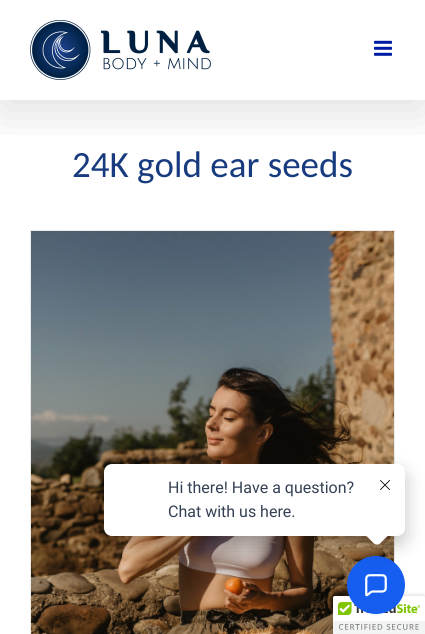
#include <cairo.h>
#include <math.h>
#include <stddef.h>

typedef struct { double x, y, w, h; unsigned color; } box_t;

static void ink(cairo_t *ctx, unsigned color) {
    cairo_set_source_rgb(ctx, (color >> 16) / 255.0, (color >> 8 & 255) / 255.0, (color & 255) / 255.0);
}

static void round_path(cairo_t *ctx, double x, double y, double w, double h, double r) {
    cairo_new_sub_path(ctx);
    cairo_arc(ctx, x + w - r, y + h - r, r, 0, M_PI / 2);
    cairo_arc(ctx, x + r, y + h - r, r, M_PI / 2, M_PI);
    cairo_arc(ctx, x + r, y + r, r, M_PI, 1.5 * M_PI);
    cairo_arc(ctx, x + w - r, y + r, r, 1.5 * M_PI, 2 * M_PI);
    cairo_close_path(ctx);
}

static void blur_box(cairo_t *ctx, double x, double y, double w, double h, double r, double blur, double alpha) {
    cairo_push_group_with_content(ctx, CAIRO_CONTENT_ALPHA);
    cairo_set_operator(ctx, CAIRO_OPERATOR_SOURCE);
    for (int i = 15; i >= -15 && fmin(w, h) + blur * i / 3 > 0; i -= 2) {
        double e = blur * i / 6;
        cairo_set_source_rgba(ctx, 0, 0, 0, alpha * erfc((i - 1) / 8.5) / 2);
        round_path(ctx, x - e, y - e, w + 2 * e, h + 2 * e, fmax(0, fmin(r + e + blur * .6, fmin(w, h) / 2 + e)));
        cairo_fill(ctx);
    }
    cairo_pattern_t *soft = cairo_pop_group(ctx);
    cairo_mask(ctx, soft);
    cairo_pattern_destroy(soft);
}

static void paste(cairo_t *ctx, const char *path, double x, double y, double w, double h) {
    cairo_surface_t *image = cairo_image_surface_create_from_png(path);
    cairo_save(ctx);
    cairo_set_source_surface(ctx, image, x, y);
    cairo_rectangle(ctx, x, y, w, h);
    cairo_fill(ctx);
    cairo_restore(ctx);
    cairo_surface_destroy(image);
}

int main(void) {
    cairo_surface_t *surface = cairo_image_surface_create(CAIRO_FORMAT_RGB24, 425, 634);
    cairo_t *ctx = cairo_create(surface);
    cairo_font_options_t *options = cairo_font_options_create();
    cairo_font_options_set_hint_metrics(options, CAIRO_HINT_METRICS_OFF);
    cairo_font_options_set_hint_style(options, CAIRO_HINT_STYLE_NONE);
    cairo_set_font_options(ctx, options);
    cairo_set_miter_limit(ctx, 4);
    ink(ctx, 0xFFFFFF);
    cairo_paint(ctx);
    cairo_save(ctx);
    cairo_rectangle(ctx, 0, 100, 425, 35);
    cairo_clip(ctx);
    ink(ctx, 0x000000);
    blur_box(ctx, 2, 12, 421, 96, 0, 25, 0.14);
    cairo_restore(ctx);
    paste(ctx, "media/1.png", 30, 20, 181, 60);
    paste(ctx, "media/2.png", 374, 40, 18, 16);
    cairo_select_font_face(ctx, "Carlito", CAIRO_FONT_SLANT_NORMAL, CAIRO_FONT_WEIGHT_NORMAL);
    cairo_set_font_size(ctx, 37);
    ink(ctx, 0x183B7F);
    cairo_move_to(ctx, 72, 177);
    cairo_show_text(ctx, "24K gold ear seeds");
    {
        static const box_t items[] = {
            {30, 230, 365, 1, 0xEBEAEA},
            {394, 230, 1, 333, 0xEBEAEA},
            {30, 230, 1, 404, 0xEBEAEA},
        };
        for (size_t i = 0; i < sizeof items / sizeof *items; i++) {
            ink(ctx, items[i].color);
            cairo_rectangle(ctx, items[i].x, items[i].y, items[i].w, items[i].h);
            cairo_fill(ctx);
        }
    }
    paste(ctx, "media/3.png", 31, 231, 363, 403);
    ink(ctx, 0x000000);
    blur_box(ctx, 333, 596, 92, 38, 2, 2.5, 0.2);
    ink(ctx, 0xFFFFFF);
    cairo_new_path(ctx);
    cairo_move_to(ctx, 335, 596);
    cairo_line_to(ctx, 425, 596);
    cairo_line_to(ctx, 425, 634);
    cairo_line_to(ctx, 333, 634);
    cairo_line_to(ctx, 333, 598);
    cairo_curve_to(ctx, 333, 597, 334, 596, 335, 596);
    cairo_close_path(ctx);
    cairo_fill(ctx);
    paste(ctx, "media/6.png", 333, 596, 92, 38);
    ink(ctx, 0x155EEF);
    cairo_arc(ctx, 376, 585, 29, 0, 2 * M_PI);
    cairo_fill(ctx);
    paste(ctx, "media/5.png", 365, 574, 22, 23);
    ink(ctx, 0x000000);
    blur_box(ctx, 104, 472, 301, 72, 8, 10, 0.24);
    ink(ctx, 0xFFFFFF);
    round_path(ctx, 104, 464, 301, 72, 8);
    cairo_fill(ctx);
    cairo_select_font_face(ctx, "Roboto", CAIRO_FONT_SLANT_NORMAL, CAIRO_FONT_WEIGHT_NORMAL);
    cairo_set_font_size(ctx, 16);
    ink(ctx, 0x344054);
    cairo_move_to(ctx, 168, 493);
    cairo_show_text(ctx, "Hi there! Have a question?");
    cairo_move_to(ctx, 168, 517);
    cairo_show_text(ctx, "Chat with us here.");
    ink(ctx, 0xFFFFFF);
    cairo_new_path(ctx);
    cairo_move_to(ctx, 380, 520.5);
    cairo_line_to(ctx, 388.5, 529);
    cairo_curve_to(ctx, 390, 530.5, 390, 533.5, 388.5, 535);
    cairo_line_to(ctx, 380, 543.5);
    cairo_curve_to(ctx, 378.5, 545, 375.5, 545, 374, 543.5);
    cairo_line_to(ctx, 365.5, 535);
    cairo_curve_to(ctx, 364, 533.5, 364, 530.5, 365.5, 529);
    cairo_line_to(ctx, 374, 520.5);
    cairo_curve_to(ctx, 375.5, 519, 378.5, 519, 380, 520.5);
    cairo_close_path(ctx);
    cairo_fill(ctx);
    paste(ctx, "media/4.png", 380, 480, 10, 10);
    cairo_surface_write_to_png(surface, "image.png");
    cairo_font_options_destroy(options);
    cairo_destroy(ctx);
    cairo_surface_destroy(surface);
    return 0;
}
